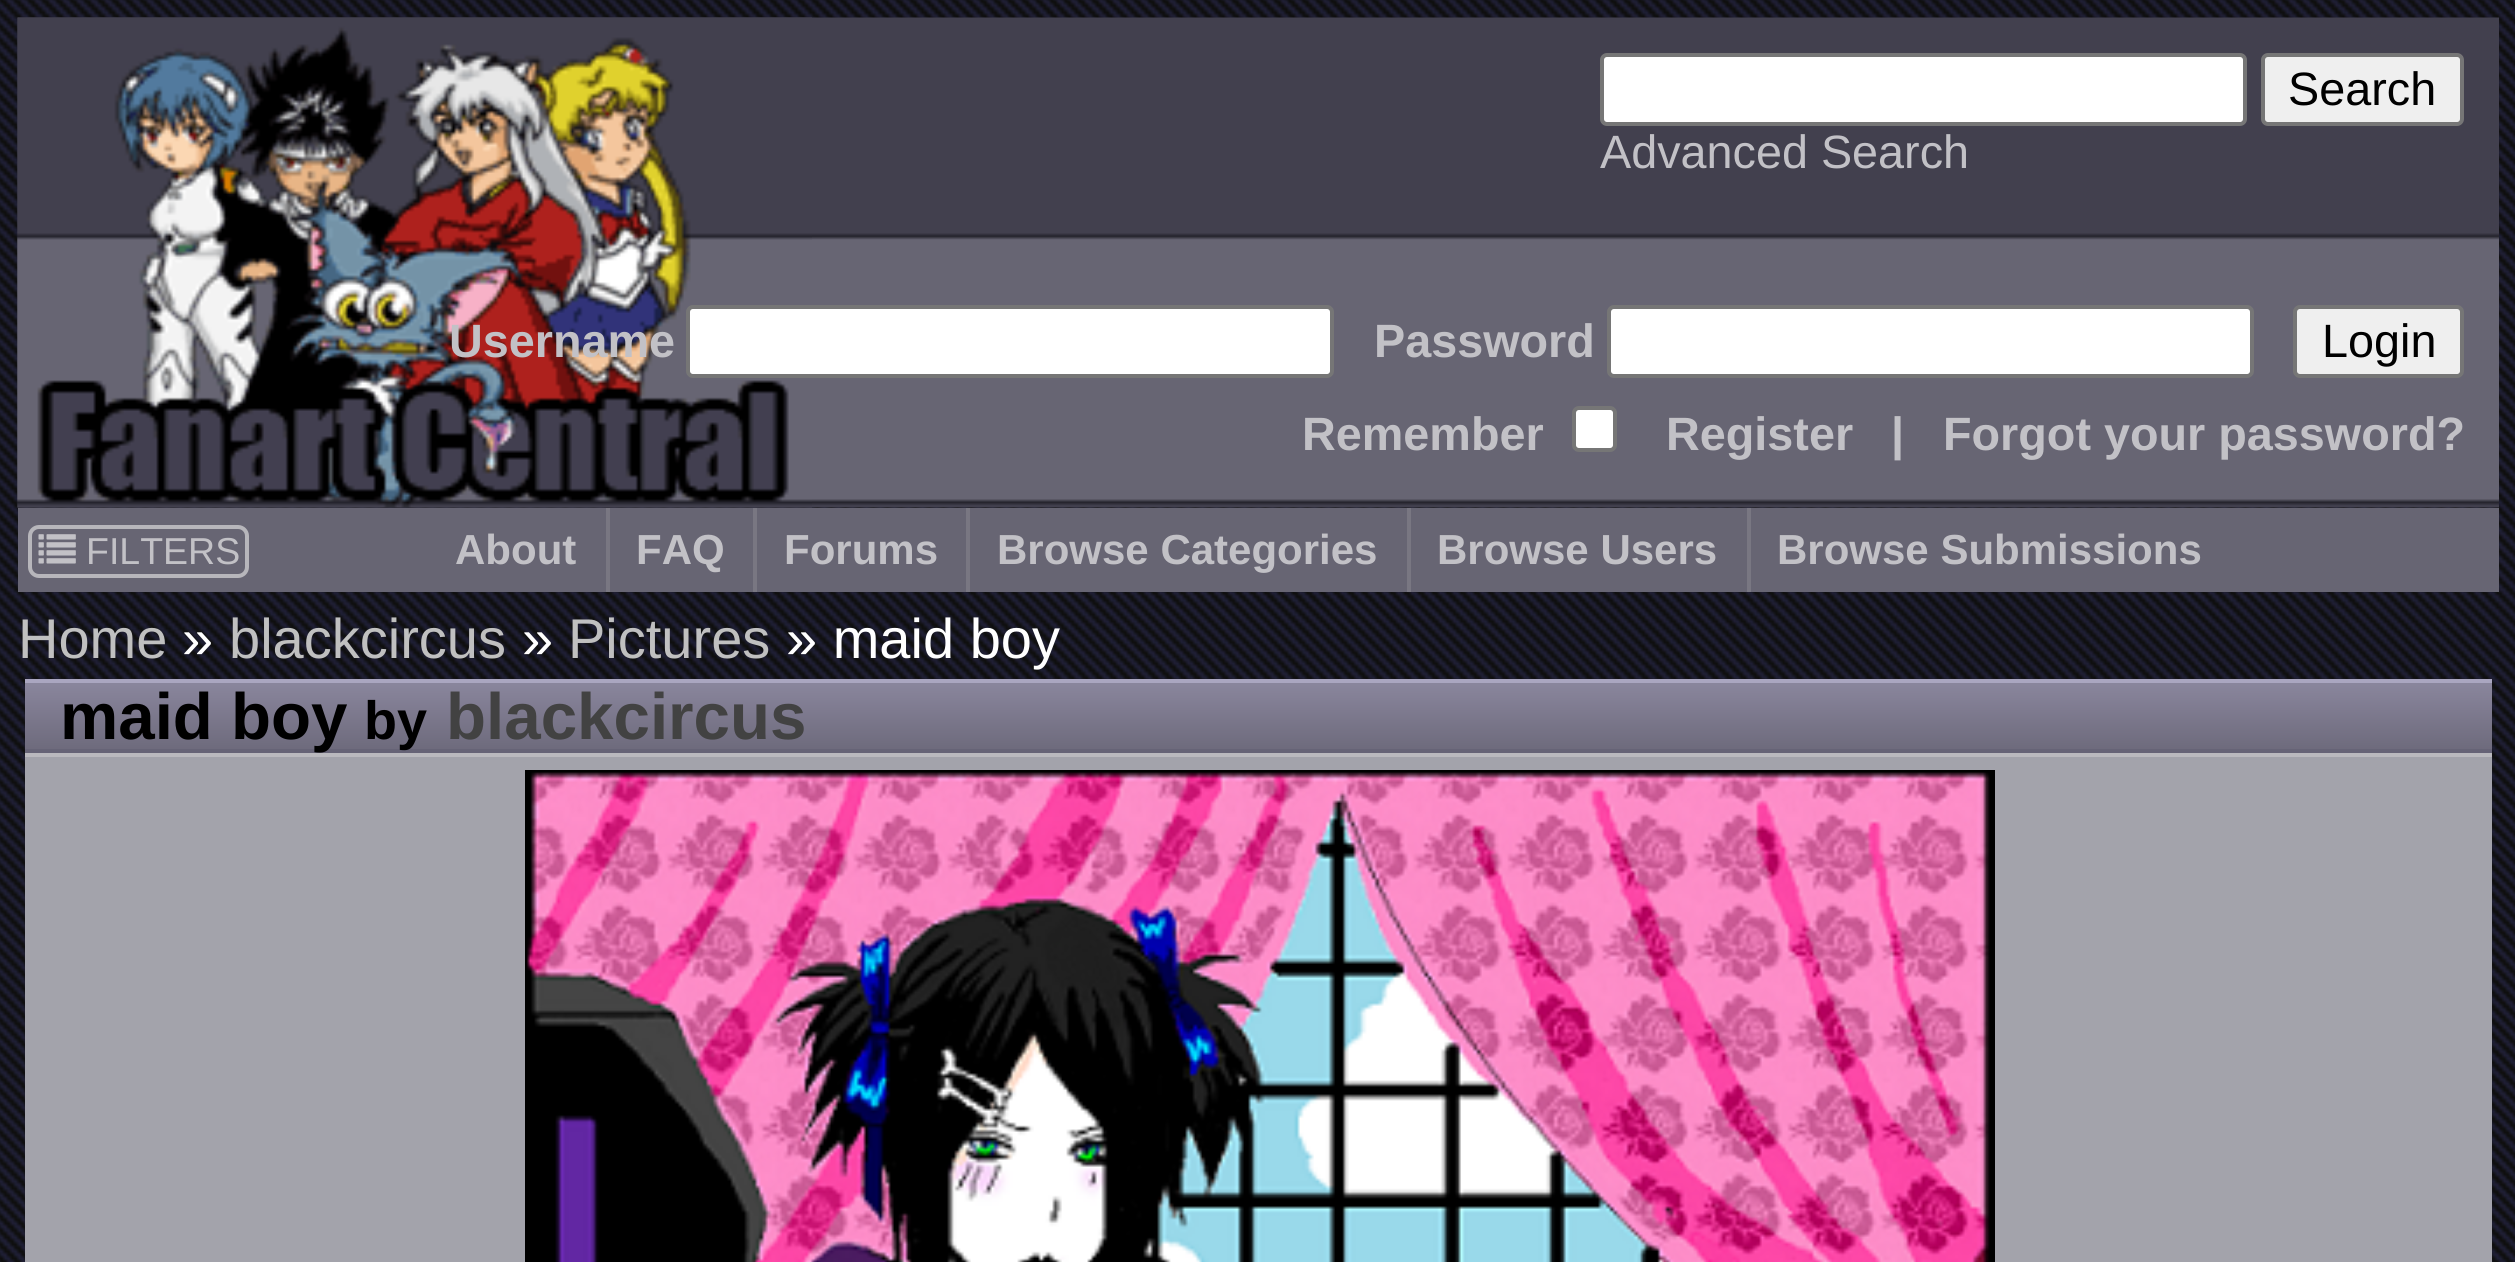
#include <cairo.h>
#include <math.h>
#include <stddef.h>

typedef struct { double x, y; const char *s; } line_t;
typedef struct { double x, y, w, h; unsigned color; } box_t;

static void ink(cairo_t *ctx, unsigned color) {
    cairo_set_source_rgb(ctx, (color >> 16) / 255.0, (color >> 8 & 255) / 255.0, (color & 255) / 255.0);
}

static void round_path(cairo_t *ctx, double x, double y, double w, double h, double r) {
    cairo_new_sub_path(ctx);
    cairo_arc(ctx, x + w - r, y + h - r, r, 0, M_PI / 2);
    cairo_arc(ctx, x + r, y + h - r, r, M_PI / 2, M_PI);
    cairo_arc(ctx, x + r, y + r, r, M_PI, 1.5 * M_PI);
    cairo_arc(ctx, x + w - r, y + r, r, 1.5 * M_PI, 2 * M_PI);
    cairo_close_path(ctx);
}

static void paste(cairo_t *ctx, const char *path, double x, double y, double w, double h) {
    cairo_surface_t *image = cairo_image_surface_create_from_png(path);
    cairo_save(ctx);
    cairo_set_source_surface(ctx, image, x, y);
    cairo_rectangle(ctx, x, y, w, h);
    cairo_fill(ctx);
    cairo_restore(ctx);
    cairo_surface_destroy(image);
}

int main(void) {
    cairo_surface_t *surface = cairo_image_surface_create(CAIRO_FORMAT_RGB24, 2515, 1262);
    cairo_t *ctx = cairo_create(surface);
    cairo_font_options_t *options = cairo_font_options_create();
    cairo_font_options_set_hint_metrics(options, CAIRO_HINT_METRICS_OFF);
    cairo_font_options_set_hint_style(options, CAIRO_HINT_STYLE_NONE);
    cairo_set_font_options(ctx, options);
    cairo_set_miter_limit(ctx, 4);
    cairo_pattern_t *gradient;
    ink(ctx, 0xFFFFFF);
    cairo_paint(ctx);
    paste(ctx, "media/1.png", 0, 0, 2515, 1262);
    paste(ctx, "media/2.png", 17, 17, 2482, 491);
    paste(ctx, "media/3.png", 17, 17, 795, 491);
    ink(ctx, 0xFFFFFF);
    round_path(ctx, 1602, 55, 643, 69, 5);
    cairo_fill_preserve(ctx);
    ink(ctx, 0x767676);
    cairo_set_line_width(ctx, 4);
    cairo_stroke(ctx);
    ink(ctx, 0xEFEFEF);
    round_path(ctx, 2263, 55, 199, 69, 5);
    cairo_fill_preserve(ctx);
    ink(ctx, 0x767676);
    cairo_stroke(ctx);
    cairo_select_font_face(ctx, "Liberation Sans", CAIRO_FONT_SLANT_NORMAL, CAIRO_FONT_WEIGHT_NORMAL);
    cairo_set_font_size(ctx, 46.75);
    ink(ctx, 0x000000);
    cairo_move_to(ctx, 2288, 105);
    cairo_show_text(ctx, "Search");
    ink(ctx, 0xC2C1C6);
    cairo_move_to(ctx, 1600, 168);
    cairo_show_text(ctx, "Advanced Search");
    cairo_select_font_face(ctx, "Liberation Sans", CAIRO_FONT_SLANT_NORMAL, CAIRO_FONT_WEIGHT_BOLD);
    cairo_move_to(ctx, 449, 357);
    cairo_show_text(ctx, "Username");
    ink(ctx, 0xFFFFFF);
    round_path(ctx, 688, 307, 644, 69, 5);
    cairo_fill_preserve(ctx);
    ink(ctx, 0x767676);
    cairo_stroke(ctx);
    ink(ctx, 0xC2C1C6);
    cairo_move_to(ctx, 1374, 357);
    cairo_show_text(ctx, "Password");
    ink(ctx, 0xFFFFFF);
    round_path(ctx, 1609, 307, 643, 69, 5);
    cairo_fill_preserve(ctx);
    ink(ctx, 0x767676);
    cairo_stroke(ctx);
    ink(ctx, 0xEFEFEF);
    round_path(ctx, 2295, 307, 167, 69, 5);
    cairo_fill_preserve(ctx);
    ink(ctx, 0x767676);
    cairo_stroke(ctx);
    cairo_select_font_face(ctx, "Liberation Sans", CAIRO_FONT_SLANT_NORMAL, CAIRO_FONT_WEIGHT_NORMAL);
    ink(ctx, 0x000000);
    cairo_move_to(ctx, 2322, 357);
    cairo_show_text(ctx, "Login");
    cairo_select_font_face(ctx, "Liberation Sans", CAIRO_FONT_SLANT_NORMAL, CAIRO_FONT_WEIGHT_BOLD);
    ink(ctx, 0xC2C1C6);
    cairo_move_to(ctx, 1302, 450);
    cairo_show_text(ctx, "Remember");
    ink(ctx, 0xFFFFFF);
    round_path(ctx, 1574, 408, 41, 42, 5);
    cairo_fill_preserve(ctx);
    ink(ctx, 0x767676);
    cairo_stroke(ctx);
    ink(ctx, 0xC2C1C6);
    {
        static const line_t items[] = {
            {1666, 450, "Register"},
            {1891, 450, "|"},
            {1943, 450, "Forgot your password?"},
        };
        for (size_t i = 0; i < sizeof items / sizeof *items; i++) {
            cairo_move_to(ctx, items[i].x, items[i].y);
            cairo_show_text(ctx, items[i].s);
        }
    }
    ink(ctx, 0x676573);
    cairo_rectangle(ctx, 18, 508, 2481, 84);
    cairo_fill(ctx);
    round_path(ctx, 30, 527, 217, 49, 9);
    ink(ctx, 0xB7B6BB);
    cairo_stroke(ctx);
    paste(ctx, "media/4.png", 38, 534, 38, 30);
    cairo_select_font_face(ctx, "Liberation Sans", CAIRO_FONT_SLANT_NORMAL, CAIRO_FONT_WEIGHT_NORMAL);
    cairo_set_font_size(ctx, 37.5);
    ink(ctx, 0xC2C1C6);
    cairo_move_to(ctx, 86, 564);
    cairo_show_text(ctx, "FILTERS");
    ink(ctx, 0x797782);
    cairo_rectangle(ctx, 606, 508, 4, 84);
    cairo_fill(ctx);
    cairo_select_font_face(ctx, "Liberation Sans", CAIRO_FONT_SLANT_NORMAL, CAIRO_FONT_WEIGHT_BOLD);
    cairo_set_font_size(ctx, 42);
    ink(ctx, 0xC2C1C6);
    cairo_move_to(ctx, 455, 564);
    cairo_show_text(ctx, "About");
    ink(ctx, 0x797782);
    cairo_rectangle(ctx, 753, 508, 4, 84);
    cairo_fill(ctx);
    ink(ctx, 0xC2C1C6);
    cairo_move_to(ctx, 636, 564);
    cairo_show_text(ctx, "FAQ");
    ink(ctx, 0x797782);
    cairo_rectangle(ctx, 966, 508, 4, 84);
    cairo_fill(ctx);
    ink(ctx, 0xC2C1C6);
    cairo_move_to(ctx, 784, 564);
    cairo_show_text(ctx, "Forums");
    ink(ctx, 0x797782);
    cairo_rectangle(ctx, 1407, 508, 4, 84);
    cairo_fill(ctx);
    ink(ctx, 0xC2C1C6);
    cairo_move_to(ctx, 997, 564);
    cairo_show_text(ctx, "Browse Categories");
    ink(ctx, 0x797782);
    cairo_rectangle(ctx, 1747, 508, 4, 84);
    cairo_fill(ctx);
    ink(ctx, 0xC2C1C6);
    cairo_move_to(ctx, 1437, 564);
    cairo_show_text(ctx, "Browse Users");
    cairo_move_to(ctx, 1777, 564);
    cairo_show_text(ctx, "Browse Submissions");
    cairo_select_font_face(ctx, "Liberation Sans", CAIRO_FONT_SLANT_NORMAL, CAIRO_FONT_WEIGHT_NORMAL);
    cairo_set_font_size(ctx, 56);
    ink(ctx, 0xC0C0C0);
    cairo_move_to(ctx, 18, 658);
    cairo_show_text(ctx, "Home");
    ink(ctx, 0xFFFFFF);
    cairo_move_to(ctx, 182, 658);
    cairo_show_text(ctx, "»");
    ink(ctx, 0xC0C0C0);
    cairo_move_to(ctx, 229, 658);
    cairo_show_text(ctx, "blackcircus");
    ink(ctx, 0xFFFFFF);
    cairo_move_to(ctx, 522, 658);
    cairo_show_text(ctx, "»");
    ink(ctx, 0xC0C0C0);
    cairo_move_to(ctx, 568, 658);
    cairo_show_text(ctx, "Pictures");
    ink(ctx, 0xFFFFFF);
    cairo_move_to(ctx, 786, 658);
    cairo_show_text(ctx, "» maid boy");
    gradient = cairo_pattern_create_linear(1258, 679, 1258, 756);
    cairo_pattern_add_color_stop_rgba(gradient, 0.01, 0.545, 0.529, 0.62, 1);
    cairo_pattern_add_color_stop_rgba(gradient, 1, 0.42, 0.408, 0.475, 1);
    cairo_set_source(ctx, gradient);
    cairo_pattern_destroy(gradient);
    cairo_rectangle(ctx, 25, 683, 2467, 66);
    cairo_fill(ctx);
    {
        static const box_t items[] = {
            {25, 679, 2467, 4, 0xAAA6C0},
            {25, 749, 2467, 4, 0x666376},
            {25, 753, 2467, 4, 0xBAB9BE},
        };
        for (size_t i = 0; i < sizeof items / sizeof *items; i++) {
            ink(ctx, items[i].color);
            cairo_rectangle(ctx, items[i].x, items[i].y, items[i].w, items[i].h);
            cairo_fill(ctx);
        }
    }
    cairo_select_font_face(ctx, "Liberation Sans", CAIRO_FONT_SLANT_NORMAL, CAIRO_FONT_WEIGHT_BOLD);
    cairo_set_font_size(ctx, 65.5);
    ink(ctx, 0x000000);
    cairo_move_to(ctx, 60, 739);
    cairo_show_text(ctx, "maid boy");
    cairo_set_font_size(ctx, 54);
    cairo_move_to(ctx, 364, 739);
    cairo_show_text(ctx, "by");
    cairo_set_font_size(ctx, 65.5);
    ink(ctx, 0x424242);
    cairo_move_to(ctx, 446, 739);
    cairo_show_text(ctx, "blackcircus");
    ink(ctx, 0xA3A3AB);
    cairo_rectangle(ctx, 25, 757, 2467, 505);
    cairo_fill(ctx);
    paste(ctx, "media/5.png", 525, 770, 1470, 492);
    cairo_surface_write_to_png(surface, "image.png");
    cairo_font_options_destroy(options);
    cairo_destroy(ctx);
    cairo_surface_destroy(surface);
    return 0;
}
